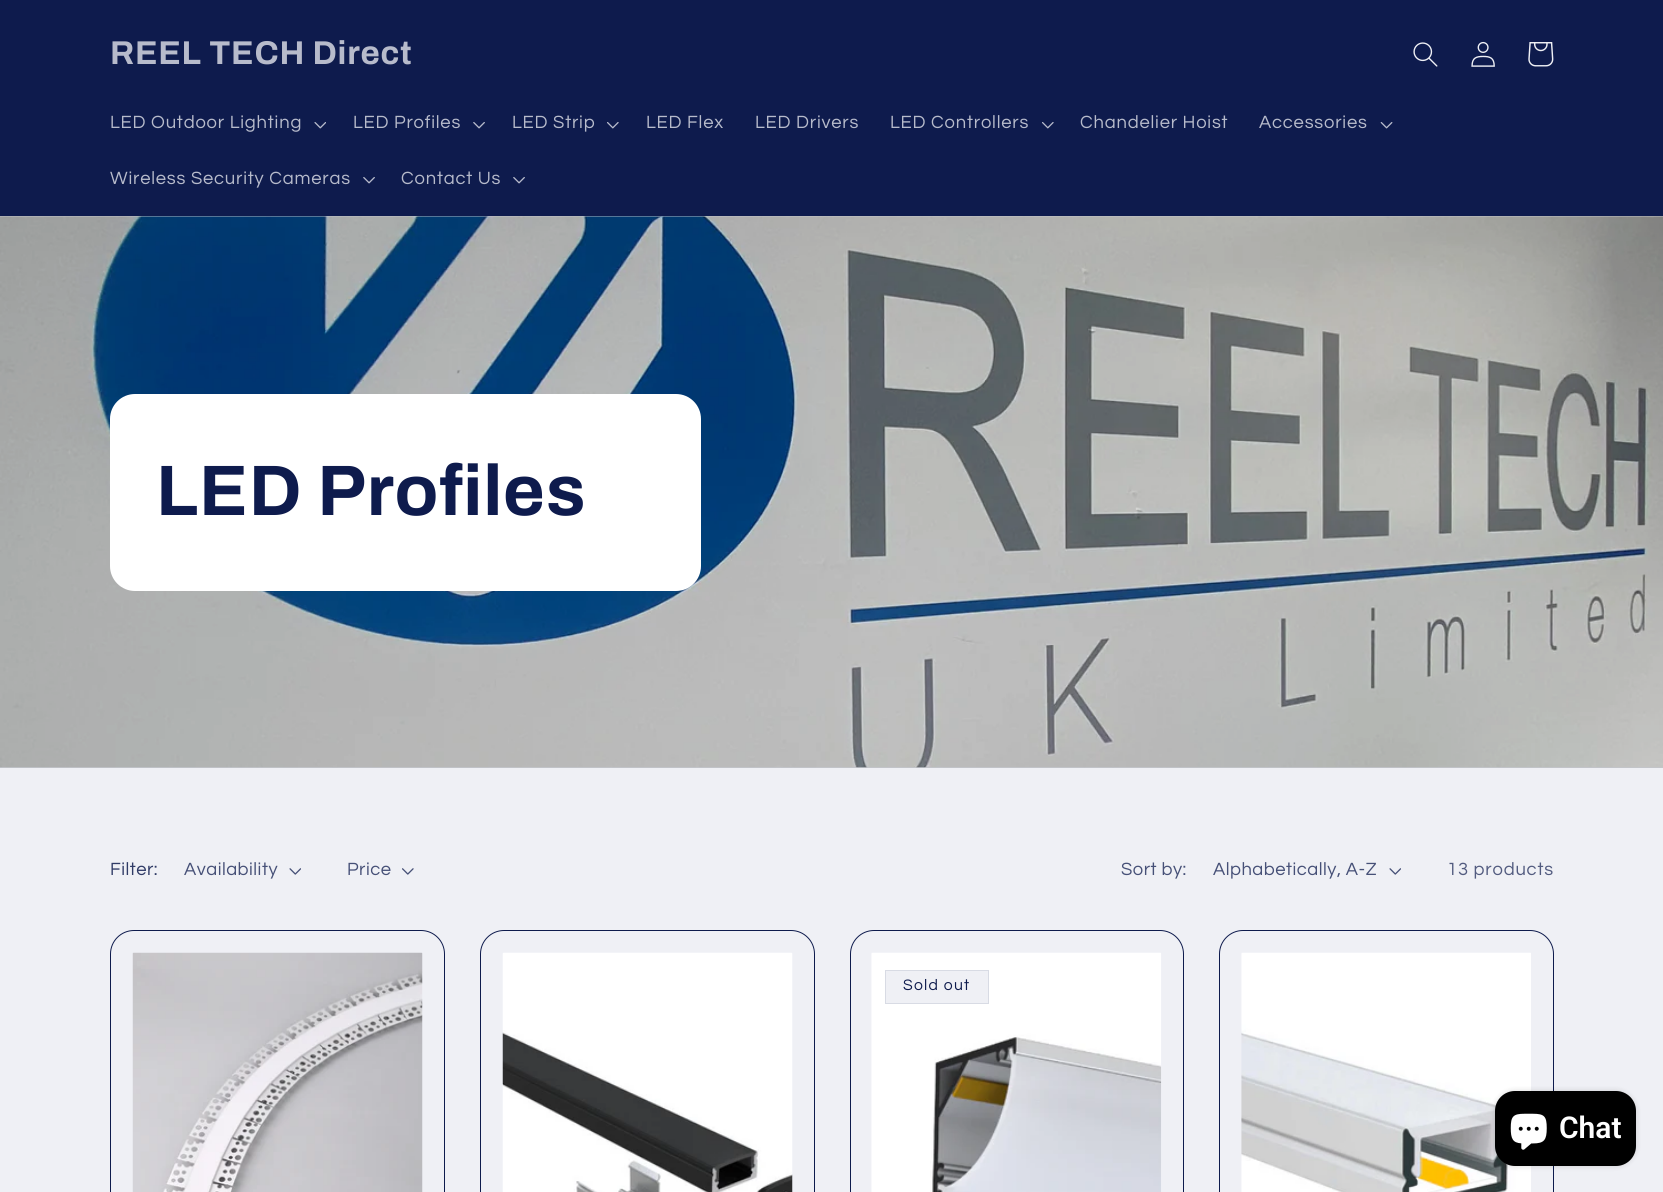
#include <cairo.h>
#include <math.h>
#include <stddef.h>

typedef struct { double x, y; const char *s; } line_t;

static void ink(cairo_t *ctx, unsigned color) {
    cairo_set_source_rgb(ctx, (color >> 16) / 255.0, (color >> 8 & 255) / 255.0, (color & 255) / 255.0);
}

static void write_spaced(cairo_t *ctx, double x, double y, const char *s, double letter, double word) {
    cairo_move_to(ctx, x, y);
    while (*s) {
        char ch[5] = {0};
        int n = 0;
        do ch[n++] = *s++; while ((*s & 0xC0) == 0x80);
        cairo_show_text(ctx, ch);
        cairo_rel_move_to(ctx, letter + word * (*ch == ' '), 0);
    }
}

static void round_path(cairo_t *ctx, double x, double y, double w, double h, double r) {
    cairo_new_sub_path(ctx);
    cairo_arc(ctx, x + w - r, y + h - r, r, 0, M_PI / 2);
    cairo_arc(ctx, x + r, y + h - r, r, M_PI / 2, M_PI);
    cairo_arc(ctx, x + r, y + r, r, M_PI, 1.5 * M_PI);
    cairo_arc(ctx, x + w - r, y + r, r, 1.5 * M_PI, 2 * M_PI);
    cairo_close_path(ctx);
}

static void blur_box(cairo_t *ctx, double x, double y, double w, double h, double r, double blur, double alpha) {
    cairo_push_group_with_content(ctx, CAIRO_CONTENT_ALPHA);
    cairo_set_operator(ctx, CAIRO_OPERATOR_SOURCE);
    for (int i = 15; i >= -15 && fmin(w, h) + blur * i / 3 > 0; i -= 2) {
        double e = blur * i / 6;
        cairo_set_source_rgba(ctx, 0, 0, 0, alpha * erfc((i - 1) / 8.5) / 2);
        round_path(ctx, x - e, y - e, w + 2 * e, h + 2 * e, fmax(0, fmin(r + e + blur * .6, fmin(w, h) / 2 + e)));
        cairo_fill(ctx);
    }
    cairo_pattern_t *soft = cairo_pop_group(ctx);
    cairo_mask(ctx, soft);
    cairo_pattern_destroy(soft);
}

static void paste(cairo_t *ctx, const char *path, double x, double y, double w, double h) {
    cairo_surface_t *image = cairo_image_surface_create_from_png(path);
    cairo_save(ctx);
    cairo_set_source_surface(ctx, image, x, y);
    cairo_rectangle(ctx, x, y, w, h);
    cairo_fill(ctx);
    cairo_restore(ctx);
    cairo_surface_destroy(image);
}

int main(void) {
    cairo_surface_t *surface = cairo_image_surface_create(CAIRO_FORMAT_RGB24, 1663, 1192);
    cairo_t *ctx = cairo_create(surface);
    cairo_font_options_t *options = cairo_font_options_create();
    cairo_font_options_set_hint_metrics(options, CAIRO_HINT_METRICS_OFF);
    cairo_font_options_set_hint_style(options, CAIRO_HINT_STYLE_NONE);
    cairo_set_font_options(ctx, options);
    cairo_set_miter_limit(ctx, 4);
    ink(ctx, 0xEFF0F5);
    cairo_paint(ctx);
    ink(ctx, 0x0E1B4D);
    cairo_rectangle(ctx, 0, 0, 1663, 216);
    cairo_fill(ctx);
    cairo_select_font_face(ctx, "Archivo", CAIRO_FONT_SLANT_NORMAL, CAIRO_FONT_WEIGHT_BOLD);
    cairo_set_font_size(ctx, 33);
    ink(ctx, 0xB7BBCB);
    write_spaced(ctx, 110, 64, "REEL TECH Direct", 0.8, 0);
    paste(ctx, "media/1.png", 1413, 42, 25, 25);
    paste(ctx, "media/2.png", 1471, 41, 24, 26);
    paste(ctx, "media/3.png", 1528, 42, 26, 25);
    cairo_select_font_face(ctx, "Questrial", CAIRO_FONT_SLANT_NORMAL, CAIRO_FONT_WEIGHT_NORMAL);
    cairo_set_font_size(ctx, 18.4);
    write_spaced(ctx, 110, 128, "LED Outdoor Lighting", 0.8, 0);
    paste(ctx, "media/4.png", 314, 122, 12, 7);
    write_spaced(ctx, 353, 128, "LED Profiles", 0.8, 0);
    paste(ctx, "media/5.png", 473, 122, 12, 7);
    write_spaced(ctx, 512, 128, "LED Strip", 0.8, 0);
    paste(ctx, "media/6.png", 607, 122, 12, 7);
    {
        static const line_t items[] = {
            {646, 128, "LED Flex"},
            {755, 128, "LED Drivers"},
            {890, 128, "LED Controllers"},
        };
        for (size_t i = 0; i < sizeof items / sizeof *items; i++) {
            write_spaced(ctx, items[i].x, items[i].y, items[i].s, 0.8, 0);
        }
    }
    paste(ctx, "media/6.png", 1042, 122, 12, 7);
    write_spaced(ctx, 1080, 128, "Chandelier Hoist", 0.8, 0);
    write_spaced(ctx, 1259, 128, "Accessories", 0.8, 0);
    paste(ctx, "media/7.png", 1380, 122, 13, 7);
    write_spaced(ctx, 110, 184, "Wireless Security Cameras", 0.8, 0);
    paste(ctx, "media/5.png", 363, 177, 12, 7);
    write_spaced(ctx, 401, 184, "Contact Us", 0.8, 0);
    paste(ctx, "media/5.png", 513, 177, 12, 7);
    ink(ctx, 0xC3C5CC);
    cairo_rectangle(ctx, 0, 216, 1663, 552);
    cairo_fill(ctx);
    paste(ctx, "media/8.png", 0, 216, 1663, 552);
    ink(ctx, 0xFFFFFF);
    round_path(ctx, 110, 394, 591, 197, 25);
    cairo_fill(ctx);
    cairo_select_font_face(ctx, "Archivo", CAIRO_FONT_SLANT_NORMAL, CAIRO_FONT_WEIGHT_BOLD);
    cairo_set_font_size(ctx, 71.5);
    ink(ctx, 0x0E1B4D);
    write_spaced(ctx, 156, 515, "LED Profiles", 0.8, 0);
    cairo_select_font_face(ctx, "Questrial", CAIRO_FONT_SLANT_NORMAL, CAIRO_FONT_WEIGHT_NORMAL);
    cairo_set_font_size(ctx, 18.4);
    ink(ctx, 0x303B66);
    write_spaced(ctx, 110, 875, "Filter:", 0.5, 0);
    ink(ctx, 0x465077);
    write_spaced(ctx, 184, 875, "Availability", 0.5, 0);
    paste(ctx, "media/9.png", 289, 868, 12, 7);
    write_spaced(ctx, 347, 875, "Price", 0.5, 0);
    paste(ctx, "media/10.png", 402, 868, 12, 7);
    write_spaced(ctx, 1121, 875, "Sort by:", 0.5, 0);
    write_spaced(ctx, 1213, 875, "Alphabetically, A-Z", 0.5, 0);
    paste(ctx, "media/9.png", 1389, 868, 12, 7);
    ink(ctx, 0x525B7F);
    write_spaced(ctx, 1447, 875, "13 products", 0.8, 0);
    round_path(ctx, 110.5, 930.5, 334, 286, 23.5);
    ink(ctx, 0x0E1B4D);
    cairo_set_line_width(ctx, 1);
    cairo_stroke(ctx);
    paste(ctx, "media/11.png", 132, 952, 291, 240);
    round_path(ctx, 480.5, 930.5, 334, 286, 23.5);
    cairo_stroke(ctx);
    paste(ctx, "media/12.png", 502, 952, 291, 240);
    round_path(ctx, 850.5, 930.5, 333, 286, 23.5);
    cairo_stroke(ctx);
    paste(ctx, "media/13.png", 871, 952, 291, 240);
    ink(ctx, 0xEFF0F5);
    cairo_rectangle(ctx, 885.5, 970.5, 103, 33);
    cairo_fill_preserve(ctx);
    ink(ctx, 0xD8DBE4);
    cairo_stroke(ctx);
    cairo_set_font_size(ctx, 15.75);
    ink(ctx, 0x0E1B4D);
    write_spaced(ctx, 903, 990, "Sold out", 1.25, 0);
    round_path(ctx, 1219.5, 930.5, 334, 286, 23.5);
    cairo_stroke(ctx);
    paste(ctx, "media/14.png", 1241, 952, 290, 240);
    ink(ctx, 0x000000);
    blur_box(ctx, 1495, 1091, 141, 75, 20, 3, 0.15);
    ink(ctx, 0x000000);
    round_path(ctx, 1495, 1091, 141, 75, 20);
    cairo_fill(ctx);
    paste(ctx, "media/15.png", 1510, 1113, 37, 37);
    cairo_select_font_face(ctx, "Roboto SemiBold", CAIRO_FONT_SLANT_NORMAL, CAIRO_FONT_WEIGHT_NORMAL);
    cairo_set_font_size(ctx, 30);
    ink(ctx, 0xFFFFFF);
    cairo_move_to(ctx, 1559, 1138);
    cairo_show_text(ctx, "Chat");
    cairo_surface_write_to_png(surface, "image.png");
    cairo_font_options_destroy(options);
    cairo_destroy(ctx);
    cairo_surface_destroy(surface);
    return 0;
}
